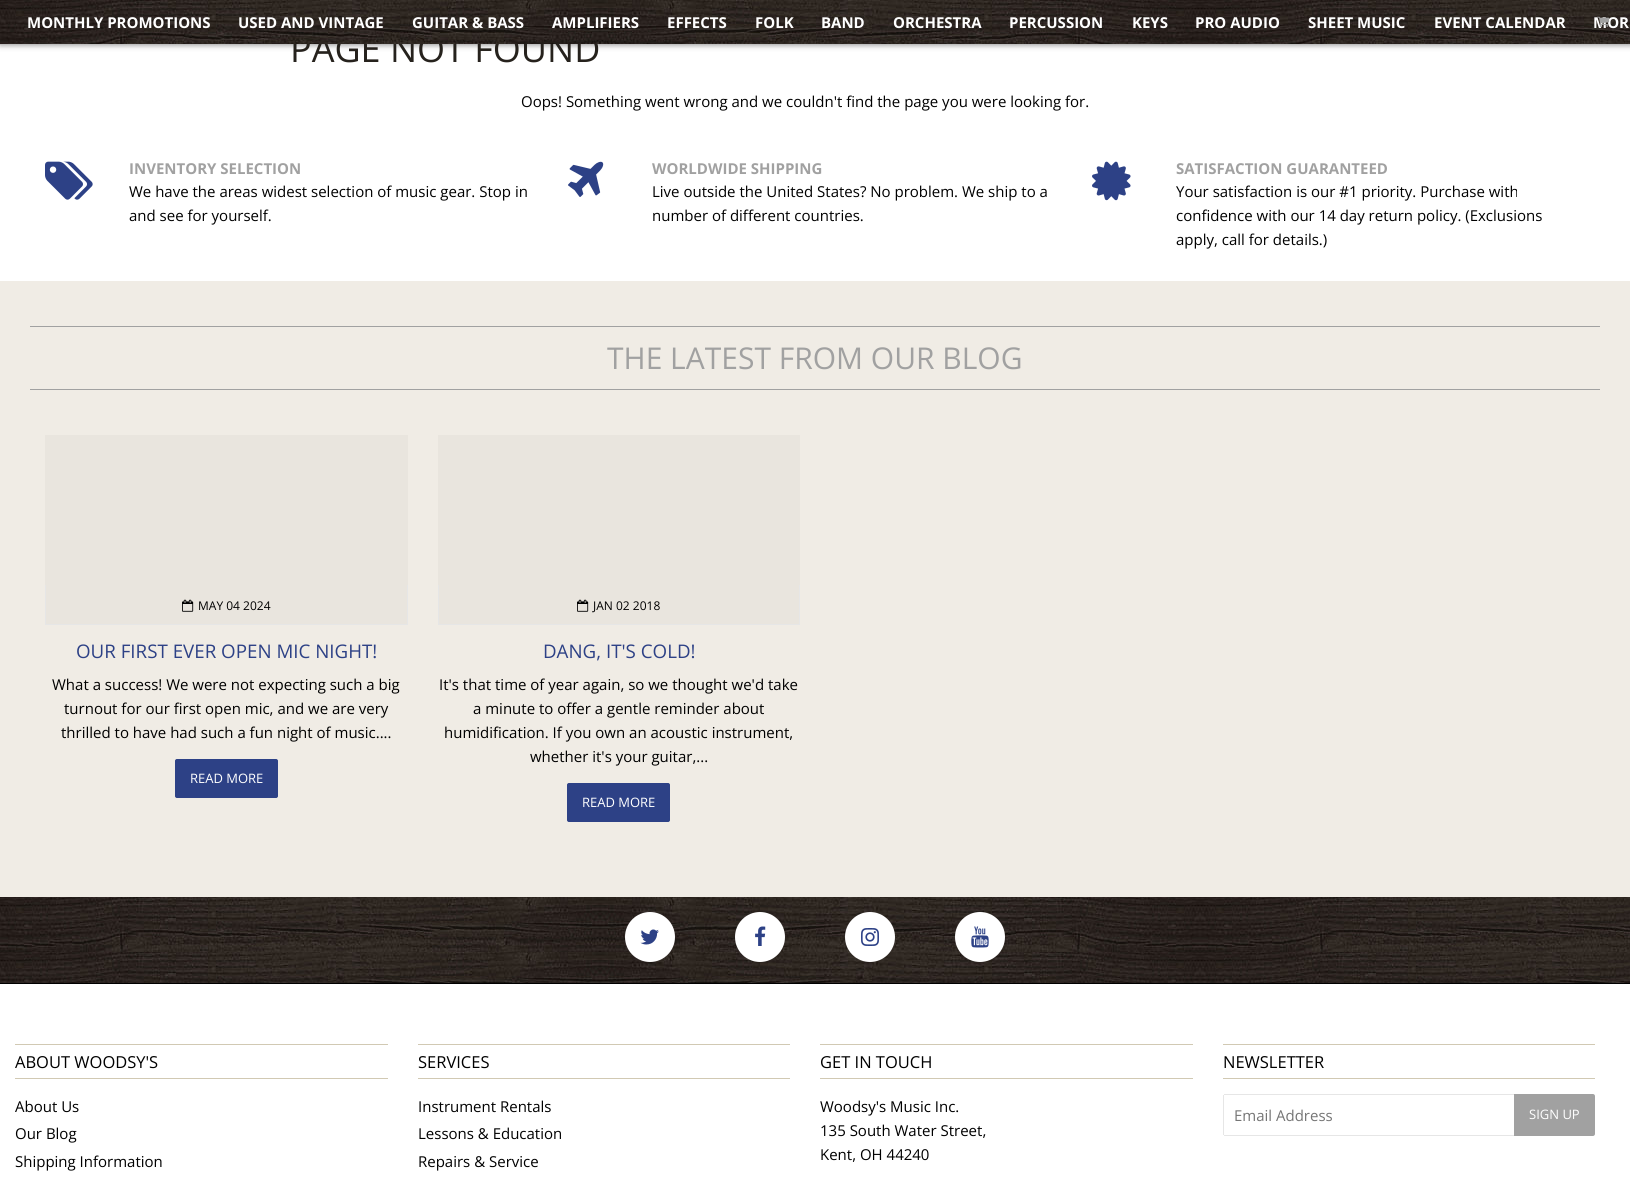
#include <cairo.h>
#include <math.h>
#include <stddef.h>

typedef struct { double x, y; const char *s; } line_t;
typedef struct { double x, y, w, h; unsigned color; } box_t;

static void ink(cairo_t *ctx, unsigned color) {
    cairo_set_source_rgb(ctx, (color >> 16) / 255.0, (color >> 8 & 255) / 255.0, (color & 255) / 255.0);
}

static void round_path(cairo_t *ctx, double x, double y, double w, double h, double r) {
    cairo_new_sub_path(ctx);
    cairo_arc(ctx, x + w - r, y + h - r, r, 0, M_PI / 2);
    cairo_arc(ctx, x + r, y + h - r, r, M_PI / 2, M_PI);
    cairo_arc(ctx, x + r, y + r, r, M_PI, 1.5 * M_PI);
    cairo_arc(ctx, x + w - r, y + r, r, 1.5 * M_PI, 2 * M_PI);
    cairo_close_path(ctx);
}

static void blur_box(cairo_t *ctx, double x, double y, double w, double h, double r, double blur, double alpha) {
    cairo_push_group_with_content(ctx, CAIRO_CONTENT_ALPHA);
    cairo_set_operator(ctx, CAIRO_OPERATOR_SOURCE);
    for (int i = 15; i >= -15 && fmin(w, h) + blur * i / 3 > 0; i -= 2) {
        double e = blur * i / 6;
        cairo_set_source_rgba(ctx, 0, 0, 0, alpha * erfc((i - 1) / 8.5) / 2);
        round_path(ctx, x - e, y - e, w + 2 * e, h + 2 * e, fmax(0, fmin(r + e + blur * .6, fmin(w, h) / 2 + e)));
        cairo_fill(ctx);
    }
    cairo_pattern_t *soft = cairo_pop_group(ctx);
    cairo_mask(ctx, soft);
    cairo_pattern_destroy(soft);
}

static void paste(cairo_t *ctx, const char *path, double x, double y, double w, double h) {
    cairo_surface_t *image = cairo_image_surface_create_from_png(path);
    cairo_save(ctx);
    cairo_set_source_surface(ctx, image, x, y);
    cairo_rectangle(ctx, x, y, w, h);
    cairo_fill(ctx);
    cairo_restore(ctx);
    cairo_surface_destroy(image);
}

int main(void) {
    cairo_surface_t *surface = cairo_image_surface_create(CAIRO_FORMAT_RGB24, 1630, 1180);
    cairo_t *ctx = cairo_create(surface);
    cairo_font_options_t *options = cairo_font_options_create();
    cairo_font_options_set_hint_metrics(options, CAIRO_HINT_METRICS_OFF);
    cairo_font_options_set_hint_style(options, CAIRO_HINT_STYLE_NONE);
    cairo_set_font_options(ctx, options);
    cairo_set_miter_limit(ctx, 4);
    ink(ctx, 0xFFFFFF);
    cairo_paint(ctx);
    ink(ctx, 0x000000);
    blur_box(ctx, 0, -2, 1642, 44, 0, 4, 1);
    cairo_select_font_face(ctx, "Open Sans", CAIRO_FONT_SLANT_NORMAL, CAIRO_FONT_WEIGHT_NORMAL);
    cairo_set_font_size(ctx, 36);
    ink(ctx, 0x26221D);
    cairo_move_to(ctx, 290, 62);
    cairo_show_text(ctx, "PAGE NOT FOUND");
    paste(ctx, "media/1.png", 0, 0, 1630, 44);
    cairo_select_font_face(ctx, "Open Sans", CAIRO_FONT_SLANT_NORMAL, CAIRO_FONT_WEIGHT_BOLD);
    cairo_set_font_size(ctx, 15);
    ink(ctx, 0xFFFFFF);
    cairo_move_to(ctx, 1593, 28);
    cairo_show_text(ctx, "MOR");
    paste(ctx, "media/2.png", 1597, 16, 13, 11);
    {
        static const line_t items[] = {
            {27, 28, "MONTHLY PROMOTIONS"},
            {238, 28, "USED AND VINTAGE"},
            {412, 28, "GUITAR & BASS"},
            {552, 28, "AMPLIFIERS"},
            {667, 28, "EFFECTS"},
            {755, 28, "FOLK"},
            {821, 28, "BAND"},
            {893, 28, "ORCHESTRA"},
            {1009, 28, "PERCUSSION"},
            {1132, 28, "KEYS"},
            {1195, 28, "PRO AUDIO"},
            {1308, 28, "SHEET MUSIC"},
            {1434, 28, "EVENT CALENDAR"},
        };
        for (size_t i = 0; i < sizeof items / sizeof *items; i++) {
            cairo_move_to(ctx, items[i].x, items[i].y);
            cairo_show_text(ctx, items[i].s);
        }
    }
    cairo_select_font_face(ctx, "Open Sans", CAIRO_FONT_SLANT_NORMAL, CAIRO_FONT_WEIGHT_NORMAL);
    ink(ctx, 0x000000);
    cairo_move_to(ctx, 521, 107);
    cairo_show_text(ctx, "Oops! Something went wrong and we couldn't find the page you were looking for.");
    paste(ctx, "media/3.png", 45, 161, 48, 39);
    cairo_select_font_face(ctx, "Open Sans", CAIRO_FONT_SLANT_NORMAL, CAIRO_FONT_WEIGHT_BOLD);
    ink(ctx, 0xA1A1A1);
    cairo_move_to(ctx, 129, 174);
    cairo_show_text(ctx, "INVENTORY SELECTION");
    cairo_select_font_face(ctx, "Open Sans", CAIRO_FONT_SLANT_NORMAL, CAIRO_FONT_WEIGHT_NORMAL);
    ink(ctx, 0x000000);
    cairo_move_to(ctx, 129, 197);
    cairo_show_text(ctx, "We have the areas widest selection of music gear. Stop in");
    cairo_move_to(ctx, 129, 221);
    cairo_show_text(ctx, "and see for yourself.");
    paste(ctx, "media/4.png", 568, 161, 36, 36);
    cairo_select_font_face(ctx, "Open Sans", CAIRO_FONT_SLANT_NORMAL, CAIRO_FONT_WEIGHT_BOLD);
    ink(ctx, 0xA1A1A1);
    cairo_move_to(ctx, 652, 174);
    cairo_show_text(ctx, "WORLDWIDE SHIPPING");
    cairo_select_font_face(ctx, "Open Sans", CAIRO_FONT_SLANT_NORMAL, CAIRO_FONT_WEIGHT_NORMAL);
    ink(ctx, 0x000000);
    cairo_move_to(ctx, 652, 197);
    cairo_show_text(ctx, "Live outside the United States? No problem. We ship to a");
    cairo_move_to(ctx, 652, 221);
    cairo_show_text(ctx, "number of different countries.");
    paste(ctx, "media/5.png", 1092, 161, 39, 40);
    cairo_select_font_face(ctx, "Open Sans", CAIRO_FONT_SLANT_NORMAL, CAIRO_FONT_WEIGHT_BOLD);
    ink(ctx, 0xA1A1A1);
    cairo_move_to(ctx, 1176, 174);
    cairo_show_text(ctx, "SATISFACTION GUARANTEED");
    cairo_select_font_face(ctx, "Open Sans", CAIRO_FONT_SLANT_NORMAL, CAIRO_FONT_WEIGHT_NORMAL);
    ink(ctx, 0x000000);
    {
        static const line_t items[] = {
            {1176, 197, "Your satisfaction is our #1 priority. Purchase with"},
            {1176, 221, "confidence with our 14 day return policy. (Exclusions"},
            {1176, 245, "apply, call for details.)"},
        };
        for (size_t i = 0; i < sizeof items / sizeof *items; i++) {
            cairo_move_to(ctx, items[i].x, items[i].y);
            cairo_show_text(ctx, items[i].s);
        }
    }
    {
        static const box_t items[] = {
            {0, 281, 1630, 616, 0xF0ECE5},
            {30, 326, 1570, 1, 0xA1A1A1},
            {30, 389, 1570, 1, 0xA1A1A1},
        };
        for (size_t i = 0; i < sizeof items / sizeof *items; i++) {
            ink(ctx, items[i].color);
            cairo_rectangle(ctx, items[i].x, items[i].y, items[i].w, items[i].h);
            cairo_fill(ctx);
        }
    }
    cairo_set_font_size(ctx, 30);
    cairo_move_to(ctx, 607, 369);
    cairo_show_text(ctx, "THE LATEST FROM OUR BLOG");
    {
        static const box_t items[] = {
            {45, 435, 363, 150, 0xE9E5DE},
            {407, 585, 1, 40, 0xE6E6E6},
            {45, 624, 363, 1, 0xE6E6E6},
            {45, 585, 1, 40, 0xE6E6E6},
            {46, 585, 361, 39, 0xE9E5DE},
        };
        for (size_t i = 0; i < sizeof items / sizeof *items; i++) {
            ink(ctx, items[i].color);
            cairo_rectangle(ctx, items[i].x, items[i].y, items[i].w, items[i].h);
            cairo_fill(ctx);
        }
    }
    paste(ctx, "media/6.png", 182, 599, 12, 13);
    cairo_set_font_size(ctx, 12);
    ink(ctx, 0x000000);
    cairo_move_to(ctx, 198, 610);
    cairo_show_text(ctx, "MAY 04 2024");
    cairo_set_font_size(ctx, 18.75);
    ink(ctx, 0x2D4186);
    cairo_move_to(ctx, 76, 658);
    cairo_show_text(ctx, "OUR FIRST EVER OPEN MIC NIGHT!");
    cairo_set_font_size(ctx, 15);
    ink(ctx, 0x000000);
    {
        static const line_t items[] = {
            {52, 690, "What a success! We were not expecting such a big"},
            {64, 714, "turnout for our first open mic, and we are very"},
            {61, 738, "thrilled to have had such a fun night of music...."},
        };
        for (size_t i = 0; i < sizeof items / sizeof *items; i++) {
            cairo_move_to(ctx, items[i].x, items[i].y);
            cairo_show_text(ctx, items[i].s);
        }
    }
    ink(ctx, 0x2D4186);
    round_path(ctx, 175.5, 759.5, 102, 38, 1.5);
    cairo_fill_preserve(ctx);
    cairo_set_line_width(ctx, 1);
    cairo_stroke(ctx);
    cairo_set_font_size(ctx, 13);
    ink(ctx, 0xFFFFFF);
    cairo_move_to(ctx, 190, 783);
    cairo_show_text(ctx, "READ MORE");
    {
        static const box_t items[] = {
            {438, 435, 362, 150, 0xE9E5DE},
            {799, 585, 1, 40, 0xE6E6E6},
            {438, 624, 362, 1, 0xE6E6E6},
            {438, 585, 1, 40, 0xE6E6E6},
            {439, 585, 360, 39, 0xE9E5DE},
        };
        for (size_t i = 0; i < sizeof items / sizeof *items; i++) {
            ink(ctx, items[i].color);
            cairo_rectangle(ctx, items[i].x, items[i].y, items[i].w, items[i].h);
            cairo_fill(ctx);
        }
    }
    paste(ctx, "media/6.png", 577, 599, 12, 13);
    cairo_set_font_size(ctx, 12);
    ink(ctx, 0x000000);
    cairo_move_to(ctx, 593, 610);
    cairo_show_text(ctx, "JAN 02 2018");
    cairo_set_font_size(ctx, 18.75);
    ink(ctx, 0x2D4186);
    cairo_move_to(ctx, 543, 658);
    cairo_show_text(ctx, "DANG, IT'S COLD!");
    cairo_set_font_size(ctx, 15);
    ink(ctx, 0x000000);
    {
        static const line_t items[] = {
            {439, 690, "It's that time of year again, so we thought we'd take"},
            {473, 714, "a minute to offer a gentle reminder about"},
            {444, 738, "humidification. If you own an acoustic instrument,"},
            {530, 762, "whether it's your guitar,..."},
        };
        for (size_t i = 0; i < sizeof items / sizeof *items; i++) {
            cairo_move_to(ctx, items[i].x, items[i].y);
            cairo_show_text(ctx, items[i].s);
        }
    }
    ink(ctx, 0x2D4186);
    round_path(ctx, 567.5, 783.5, 102, 38, 1.5);
    cairo_fill_preserve(ctx);
    cairo_stroke(ctx);
    cairo_set_font_size(ctx, 13);
    ink(ctx, 0xFFFFFF);
    cairo_move_to(ctx, 582, 807);
    cairo_show_text(ctx, "READ MORE");
    paste(ctx, "media/7.png", 0, 897, 1630, 86);
    ink(ctx, 0x000000);
    cairo_rectangle(ctx, 0, 983, 1630, 1);
    cairo_fill(ctx);
    ink(ctx, 0xFFFFFF);
    cairo_arc(ctx, 650, 937, 25, 0, 2 * M_PI);
    cairo_fill(ctx);
    paste(ctx, "media/8.png", 640, 929, 19, 16);
    cairo_arc(ctx, 760, 937, 25, 0, 2 * M_PI);
    cairo_fill(ctx);
    paste(ctx, "media/9.png", 755, 926, 11, 20);
    cairo_arc(ctx, 870, 937, 25, 0, 2 * M_PI);
    cairo_fill(ctx);
    paste(ctx, "media/10.png", 861, 928, 18, 18);
    cairo_arc(ctx, 980, 937, 25, 0, 2 * M_PI);
    cairo_fill(ctx);
    paste(ctx, "media/11.png", 971, 926, 18, 22);
    ink(ctx, 0xD1C9B3);
    cairo_rectangle(ctx, 15, 1044, 373, 1);
    cairo_fill(ctx);
    cairo_rectangle(ctx, 15, 1078, 373, 1);
    cairo_fill(ctx);
    cairo_set_font_size(ctx, 16.5);
    ink(ctx, 0x000000);
    cairo_move_to(ctx, 15, 1068);
    cairo_show_text(ctx, "ABOUT WOODSY'S");
    cairo_set_font_size(ctx, 15);
    {
        static const line_t items[] = {
            {15, 1112, "About Us"},
            {15, 1139, "Our Blog"},
            {15, 1167, "Shipping Information"},
        };
        for (size_t i = 0; i < sizeof items / sizeof *items; i++) {
            cairo_move_to(ctx, items[i].x, items[i].y);
            cairo_show_text(ctx, items[i].s);
        }
    }
    ink(ctx, 0xD1C9B3);
    cairo_rectangle(ctx, 418, 1044, 372, 1);
    cairo_fill(ctx);
    cairo_rectangle(ctx, 418, 1078, 372, 1);
    cairo_fill(ctx);
    cairo_set_font_size(ctx, 16.5);
    ink(ctx, 0x000000);
    cairo_move_to(ctx, 418, 1068);
    cairo_show_text(ctx, "SERVICES");
    cairo_set_font_size(ctx, 15);
    {
        static const line_t items[] = {
            {418, 1112, "Instrument Rentals"},
            {418, 1139, "Lessons & Education"},
            {418, 1167, "Repairs & Service"},
        };
        for (size_t i = 0; i < sizeof items / sizeof *items; i++) {
            cairo_move_to(ctx, items[i].x, items[i].y);
            cairo_show_text(ctx, items[i].s);
        }
    }
    ink(ctx, 0xD1C9B3);
    cairo_rectangle(ctx, 820, 1044, 373, 1);
    cairo_fill(ctx);
    cairo_rectangle(ctx, 820, 1078, 373, 1);
    cairo_fill(ctx);
    cairo_set_font_size(ctx, 16.5);
    ink(ctx, 0x000000);
    cairo_move_to(ctx, 820, 1068);
    cairo_show_text(ctx, "GET IN TOUCH");
    cairo_set_font_size(ctx, 15);
    {
        static const line_t items[] = {
            {820, 1112, "Woodsy's Music Inc."},
            {820, 1136, "135 South Water Street,"},
            {820, 1160, "Kent, OH 44240"},
        };
        for (size_t i = 0; i < sizeof items / sizeof *items; i++) {
            cairo_move_to(ctx, items[i].x, items[i].y);
            cairo_show_text(ctx, items[i].s);
        }
    }
    ink(ctx, 0xD1C9B3);
    cairo_rectangle(ctx, 1223, 1044, 372, 1);
    cairo_fill(ctx);
    cairo_rectangle(ctx, 1223, 1078, 372, 1);
    cairo_fill(ctx);
    cairo_set_font_size(ctx, 16.5);
    ink(ctx, 0x000000);
    cairo_move_to(ctx, 1223, 1068);
    cairo_show_text(ctx, "NEWSLETTER");
    {
        static const box_t items[] = {
            {1224, 1094, 290, 1, 0xE6E6E6},
            {1224, 1135, 290, 1, 0xE6E6E6},
            {1223, 1095, 1, 40, 0xE6E6E6},
        };
        for (size_t i = 0; i < sizeof items / sizeof *items; i++) {
            ink(ctx, items[i].color);
            cairo_rectangle(ctx, items[i].x, items[i].y, items[i].w, items[i].h);
            cairo_fill(ctx);
        }
    }
    cairo_set_font_size(ctx, 15);
    ink(ctx, 0x757575);
    cairo_move_to(ctx, 1234, 1121);
    cairo_show_text(ctx, "Email Address");
    ink(ctx, 0xA1A1A1);
    cairo_new_path(ctx);
    cairo_move_to(ctx, 1514, 1094);
    cairo_line_to(ctx, 1593, 1094);
    cairo_curve_to(ctx, 1594, 1094, 1595, 1095, 1595, 1096);
    cairo_line_to(ctx, 1595, 1134);
    cairo_curve_to(ctx, 1595, 1135, 1594, 1136, 1593, 1136);
    cairo_line_to(ctx, 1514, 1136);
    cairo_close_path(ctx);
    cairo_fill(ctx);
    cairo_set_font_size(ctx, 13);
    ink(ctx, 0xFFFFFF);
    cairo_move_to(ctx, 1529, 1119);
    cairo_show_text(ctx, "SIGN UP");
    cairo_surface_write_to_png(surface, "image.png");
    cairo_font_options_destroy(options);
    cairo_destroy(ctx);
    cairo_surface_destroy(surface);
    return 0;
}
